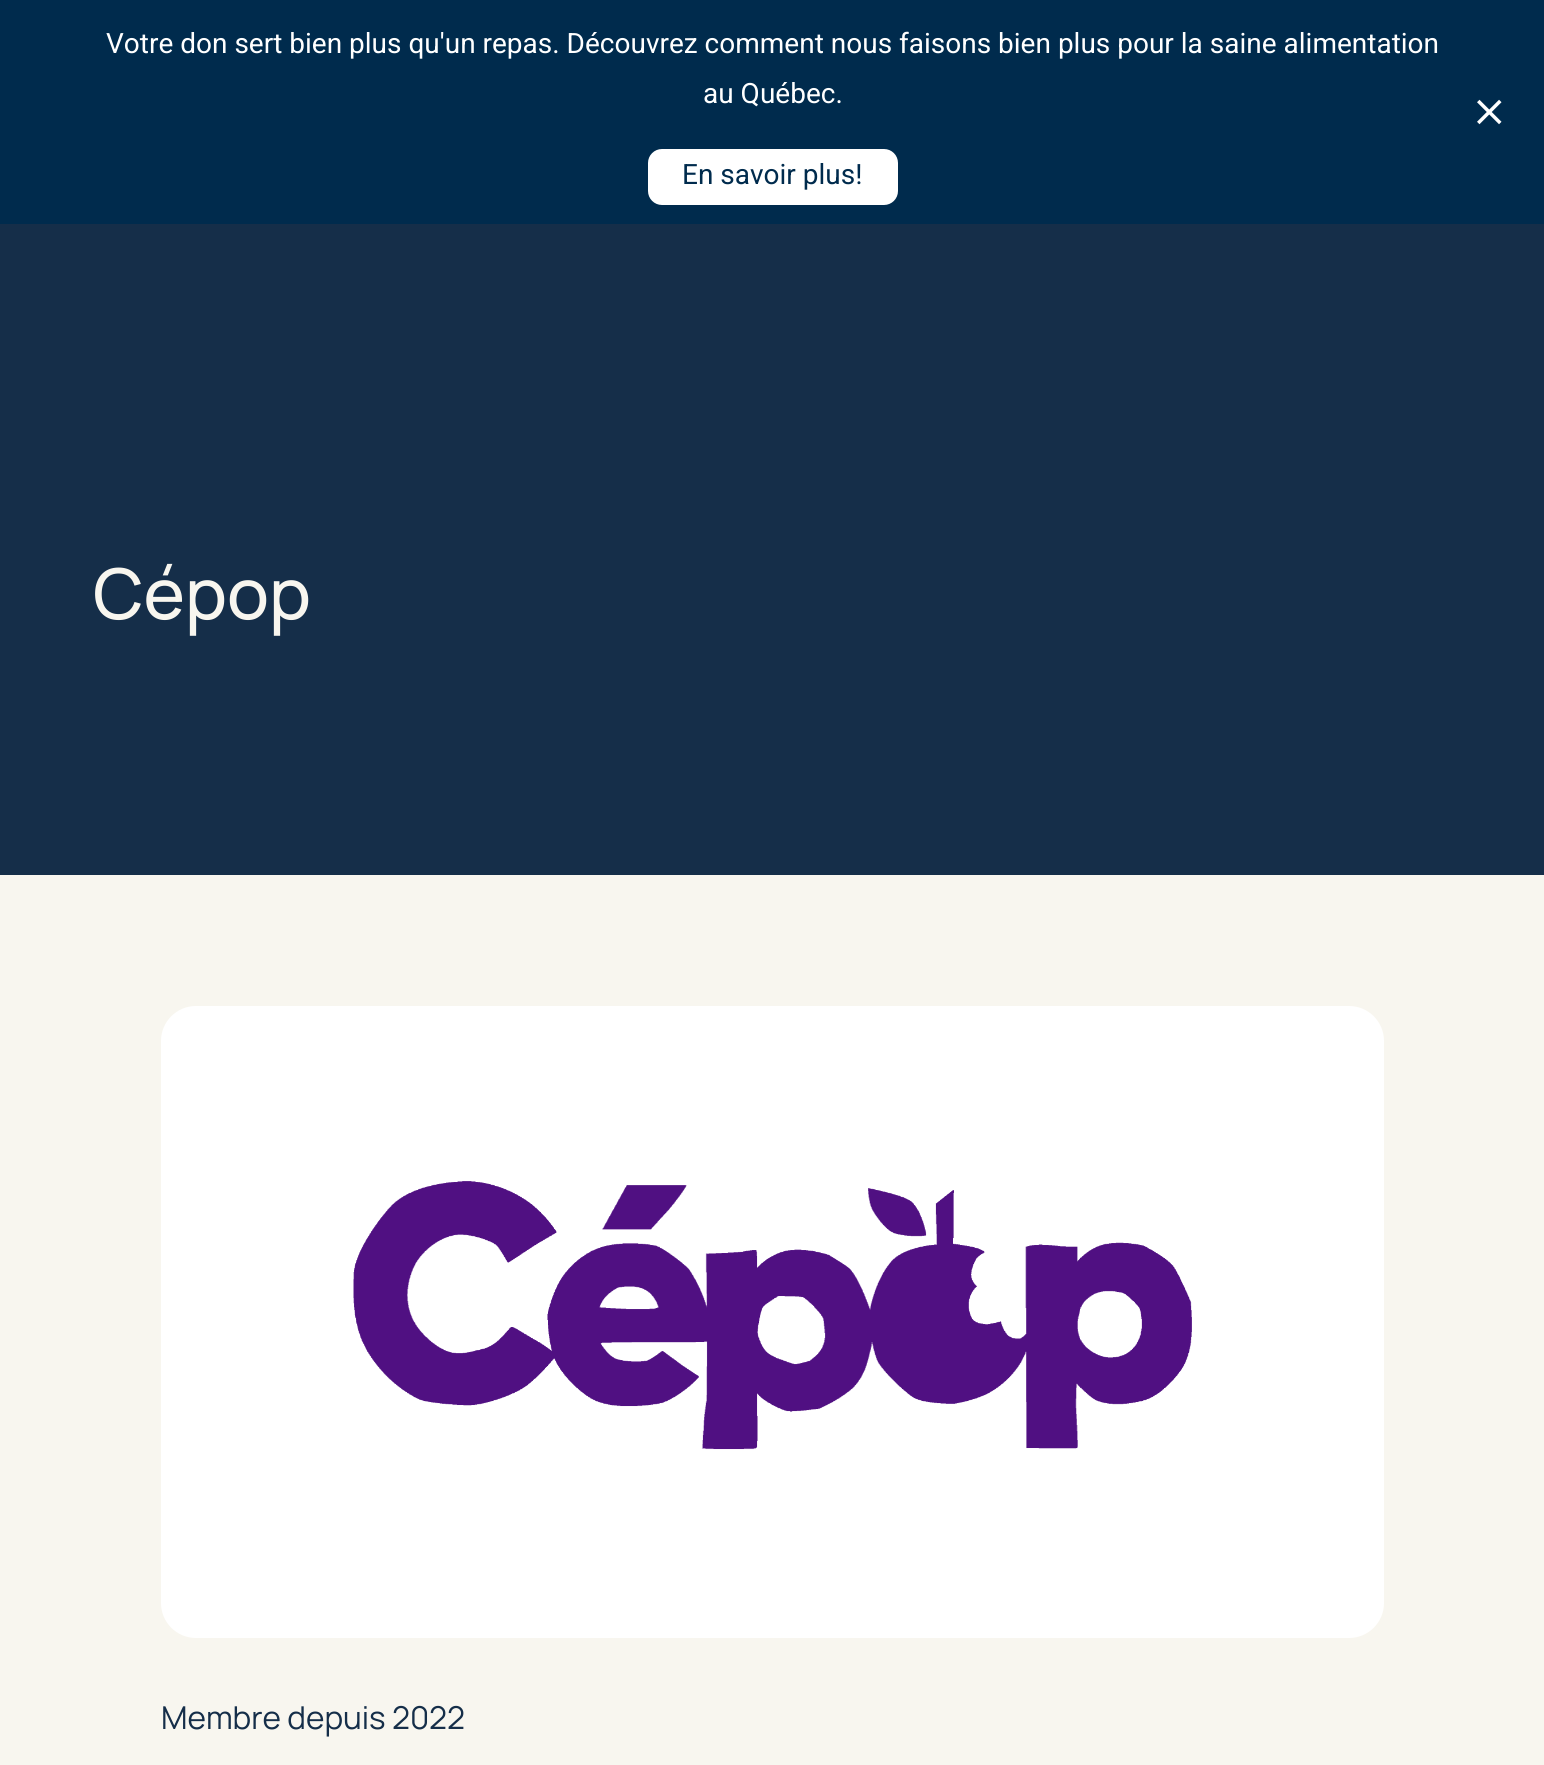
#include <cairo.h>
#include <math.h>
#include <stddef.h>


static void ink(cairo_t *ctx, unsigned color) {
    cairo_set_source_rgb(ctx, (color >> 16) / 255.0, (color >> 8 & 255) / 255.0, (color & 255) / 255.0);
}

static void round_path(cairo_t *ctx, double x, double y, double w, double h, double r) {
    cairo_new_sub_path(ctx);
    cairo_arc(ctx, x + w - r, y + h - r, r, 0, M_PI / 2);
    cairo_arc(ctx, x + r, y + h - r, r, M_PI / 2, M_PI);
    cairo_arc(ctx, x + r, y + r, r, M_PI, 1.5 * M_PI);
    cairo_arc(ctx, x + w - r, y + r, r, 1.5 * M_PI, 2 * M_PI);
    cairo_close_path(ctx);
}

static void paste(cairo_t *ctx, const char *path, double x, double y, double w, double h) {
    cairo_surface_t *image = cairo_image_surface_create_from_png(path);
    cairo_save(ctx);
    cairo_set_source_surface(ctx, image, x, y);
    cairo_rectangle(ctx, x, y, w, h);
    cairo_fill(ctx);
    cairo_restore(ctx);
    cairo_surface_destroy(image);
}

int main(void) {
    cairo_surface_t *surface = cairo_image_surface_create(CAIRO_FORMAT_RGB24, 1544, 1765);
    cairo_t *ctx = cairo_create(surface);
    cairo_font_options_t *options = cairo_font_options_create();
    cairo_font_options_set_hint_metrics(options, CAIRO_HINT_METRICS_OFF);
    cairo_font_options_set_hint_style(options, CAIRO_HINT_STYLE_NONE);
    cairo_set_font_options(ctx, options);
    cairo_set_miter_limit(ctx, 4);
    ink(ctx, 0xF8F6EF);
    cairo_paint(ctx);
    ink(ctx, 0x002B4D);
    cairo_rectangle(ctx, 0, 0, 1544, 224);
    cairo_fill(ctx);
    cairo_select_font_face(ctx, "Roboto", CAIRO_FONT_SLANT_NORMAL, CAIRO_FONT_WEIGHT_NORMAL);
    cairo_set_font_size(ctx, 28);
    ink(ctx, 0xFFFFFF);
    cairo_move_to(ctx, 106, 53);
    cairo_show_text(ctx, "Votre don sert bien plus qu'un repas. Découvrez comment nous faisons bien plus pour la saine alimentation");
    cairo_move_to(ctx, 703, 103);
    cairo_show_text(ctx, "au Québec.");
    round_path(ctx, 648, 149, 250, 56, 14);
    cairo_fill(ctx);
    ink(ctx, 0x002B4D);
    cairo_move_to(ctx, 682, 184);
    cairo_show_text(ctx, "En savoir plus!");
    paste(ctx, "media/1.png", 1477, 99, 25, 26);
    ink(ctx, 0x152E49);
    cairo_rectangle(ctx, 0, 224, 1544, 651);
    cairo_fill(ctx);
    cairo_select_font_face(ctx, "Manrope Medium", CAIRO_FONT_SLANT_NORMAL, CAIRO_FONT_WEIGHT_NORMAL);
    cairo_set_font_size(ctx, 70);
    ink(ctx, 0xF8F6EF);
    cairo_move_to(ctx, 93, 619);
    cairo_show_text(ctx, "Cépop");
    ink(ctx, 0xFFFFFF);
    round_path(ctx, 161, 1006, 1223, 632, 35);
    cairo_fill(ctx);
    paste(ctx, "media/2.png", 353, 1181, 839, 269);
    cairo_select_font_face(ctx, "Manrope", CAIRO_FONT_SLANT_NORMAL, CAIRO_FONT_WEIGHT_NORMAL);
    cairo_set_font_size(ctx, 31.5);
    ink(ctx, 0x152E49);
    cairo_move_to(ctx, 161, 1729);
    cairo_show_text(ctx, "Membre depuis 2022");
    cairo_surface_write_to_png(surface, "image.png");
    cairo_font_options_destroy(options);
    cairo_destroy(ctx);
    cairo_surface_destroy(surface);
    return 0;
}
